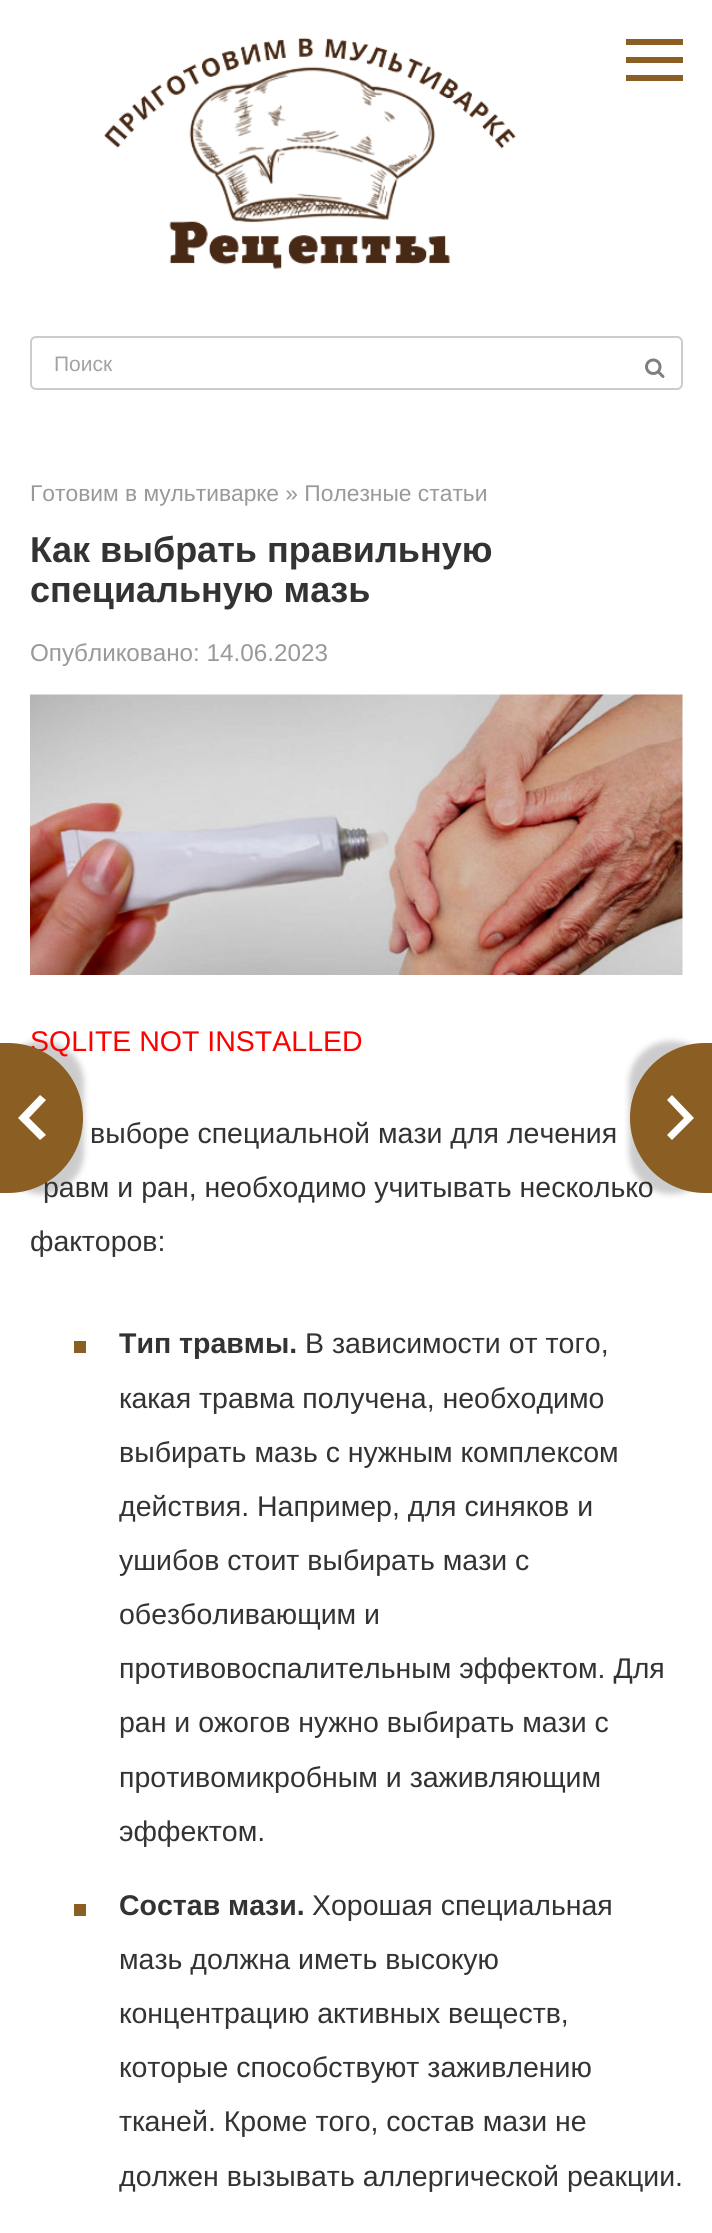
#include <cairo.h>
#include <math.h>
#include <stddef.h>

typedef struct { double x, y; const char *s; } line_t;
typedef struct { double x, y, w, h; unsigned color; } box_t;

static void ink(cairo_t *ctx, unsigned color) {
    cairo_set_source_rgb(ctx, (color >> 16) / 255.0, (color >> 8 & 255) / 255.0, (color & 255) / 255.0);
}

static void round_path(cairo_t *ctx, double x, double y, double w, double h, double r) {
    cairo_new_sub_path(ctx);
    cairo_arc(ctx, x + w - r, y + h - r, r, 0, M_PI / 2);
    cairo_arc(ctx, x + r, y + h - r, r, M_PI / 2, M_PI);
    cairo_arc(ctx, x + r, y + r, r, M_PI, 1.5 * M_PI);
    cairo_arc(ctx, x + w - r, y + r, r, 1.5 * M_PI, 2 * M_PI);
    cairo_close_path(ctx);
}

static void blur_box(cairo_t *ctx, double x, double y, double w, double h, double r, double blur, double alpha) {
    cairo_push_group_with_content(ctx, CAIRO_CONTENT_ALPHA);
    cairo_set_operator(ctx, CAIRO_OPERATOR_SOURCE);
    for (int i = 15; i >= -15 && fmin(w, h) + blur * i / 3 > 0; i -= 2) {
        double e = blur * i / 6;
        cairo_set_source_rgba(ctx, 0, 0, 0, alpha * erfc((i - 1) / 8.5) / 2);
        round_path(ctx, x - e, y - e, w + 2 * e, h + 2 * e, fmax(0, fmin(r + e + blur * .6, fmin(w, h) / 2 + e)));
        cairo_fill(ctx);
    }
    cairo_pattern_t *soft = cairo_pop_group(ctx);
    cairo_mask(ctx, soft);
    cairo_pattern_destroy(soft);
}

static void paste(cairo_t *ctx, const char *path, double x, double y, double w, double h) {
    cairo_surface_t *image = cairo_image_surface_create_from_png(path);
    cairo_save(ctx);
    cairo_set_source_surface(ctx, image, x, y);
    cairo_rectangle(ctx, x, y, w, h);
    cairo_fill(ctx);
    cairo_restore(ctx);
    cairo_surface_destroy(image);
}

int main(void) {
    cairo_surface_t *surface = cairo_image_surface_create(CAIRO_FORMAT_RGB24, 712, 2233);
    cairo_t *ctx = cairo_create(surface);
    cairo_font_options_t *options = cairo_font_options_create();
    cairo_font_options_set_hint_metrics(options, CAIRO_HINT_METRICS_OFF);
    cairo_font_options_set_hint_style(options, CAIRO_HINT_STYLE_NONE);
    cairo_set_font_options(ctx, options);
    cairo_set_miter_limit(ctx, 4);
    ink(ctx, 0xFFFFFF);
    cairo_paint(ctx);
    paste(ctx, "media/1.png", 103, 37, 413, 232);
    {
        static const box_t items[] = {
            {626, 39, 57, 6, 0x8B5E23},
            {626, 75, 57, 6, 0x8B5E23},
            {626, 57, 57, 6, 0x8B5E23},
        };
        for (size_t i = 0; i < sizeof items / sizeof *items; i++) {
            ink(ctx, items[i].color);
            cairo_rectangle(ctx, items[i].x, items[i].y, items[i].w, items[i].h);
            cairo_fill(ctx);
        }
    }
    round_path(ctx, 31, 337, 651, 52, 5);
    ink(ctx, 0xCCCCCC);
    cairo_stroke(ctx);
    cairo_select_font_face(ctx, "Liberation Sans", CAIRO_FONT_SLANT_NORMAL, CAIRO_FONT_WEIGHT_NORMAL);
    cairo_set_font_size(ctx, 21);
    ink(ctx, 0xA3A3A3);
    cairo_move_to(ctx, 54, 371);
    cairo_show_text(ctx, "Поиск");
    paste(ctx, "media/2.png", 645, 358, 20, 20);
    cairo_set_font_size(ctx, 22.8);
    ink(ctx, 0x999999);
    cairo_move_to(ctx, 30, 501);
    cairo_show_text(ctx, "Готовим в мультиварке » Полезные статьи");
    cairo_select_font_face(ctx, "Liberation Sans", CAIRO_FONT_SLANT_NORMAL, CAIRO_FONT_WEIGHT_BOLD);
    cairo_set_font_size(ctx, 36);
    ink(ctx, 0x333333);
    cairo_move_to(ctx, 30, 562);
    cairo_show_text(ctx, "Как выбрать правильную");
    cairo_move_to(ctx, 30, 602);
    cairo_show_text(ctx, "специальную мазь");
    cairo_select_font_face(ctx, "Liberation Sans", CAIRO_FONT_SLANT_NORMAL, CAIRO_FONT_WEIGHT_NORMAL);
    cairo_set_font_size(ctx, 24.25);
    ink(ctx, 0x999999);
    cairo_move_to(ctx, 30, 661);
    cairo_show_text(ctx, "Опубликовано: 14.06.2023");
    paste(ctx, "media/3.png", 30, 694, 653, 281);
    ink(ctx, 0x000000);
    blur_box(ctx, -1, 1041, 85, 153, 77, 3, 0.2);
    cairo_set_font_size(ctx, 28.5);
    ink(ctx, 0xFF0000);
    cairo_move_to(ctx, 30, 1051);
    cairo_show_text(ctx, "SQLITE NOT INSTALLED");
    ink(ctx, 0x333333);
    cairo_move_to(ctx, 43, 1197);
    cairo_show_text(ctx, "равм и ран, необходимо учитывать несколько");
    ink(ctx, 0x8B5E23);
    cairo_new_path(ctx);
    cairo_move_to(ctx, 0, 1043);
    cairo_line_to(ctx, 8, 1043);
    cairo_curve_to(ctx, 49.5, 1043, 83, 1076.5, 83, 1118);
    cairo_curve_to(ctx, 83, 1159.5, 49.5, 1193, 8, 1193);
    cairo_line_to(ctx, 0, 1193);
    cairo_close_path(ctx);
    cairo_fill(ctx);
    ink(ctx, 0xFFFFFF);
    cairo_set_fill_rule(ctx, CAIRO_FILL_RULE_EVEN_ODD);
    cairo_new_path(ctx);
    cairo_move_to(ctx, 46, 1100);
    cairo_line_to(ctx, 40, 1095);
    cairo_line_to(ctx, 18, 1118);
    cairo_line_to(ctx, 40, 1140);
    cairo_line_to(ctx, 46, 1135);
    cairo_line_to(ctx, 29, 1118);
    cairo_close_path(ctx);
    cairo_fill(ctx);
    ink(ctx, 0x000000);
    blur_box(ctx, 629, 1041, 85, 153, 77, 3, 0.2);
    ink(ctx, 0x8B5E23);
    cairo_new_path(ctx);
    cairo_move_to(ctx, 705, 1043);
    cairo_line_to(ctx, 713, 1043);
    cairo_line_to(ctx, 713, 1193);
    cairo_line_to(ctx, 705, 1193);
    cairo_curve_to(ctx, 663.5, 1193, 630, 1159.5, 630, 1118);
    cairo_curve_to(ctx, 630, 1076.5, 663.5, 1043, 705, 1043);
    cairo_close_path(ctx);
    cairo_fill(ctx);
    ink(ctx, 0xFFFFFF);
    cairo_new_path(ctx);
    cairo_move_to(ctx, 667, 1100);
    cairo_line_to(ctx, 672, 1095);
    cairo_line_to(ctx, 694, 1118);
    cairo_line_to(ctx, 672, 1140);
    cairo_line_to(ctx, 667, 1135);
    cairo_line_to(ctx, 684, 1118);
    cairo_close_path(ctx);
    cairo_fill(ctx);
    ink(ctx, 0x333333);
    cairo_move_to(ctx, 90, 1143);
    cairo_show_text(ctx, "выборе специальной мази для лечения");
    cairo_move_to(ctx, 30, 1251);
    cairo_show_text(ctx, "факторов:");
    ink(ctx, 0x8B5E23);
    cairo_rectangle(ctx, 74, 1341, 12, 12);
    cairo_fill(ctx);
    cairo_select_font_face(ctx, "Liberation Sans", CAIRO_FONT_SLANT_NORMAL, CAIRO_FONT_WEIGHT_BOLD);
    ink(ctx, 0x333333);
    cairo_move_to(ctx, 119, 1353);
    cairo_show_text(ctx, "Тип травмы.");
    cairo_select_font_face(ctx, "Liberation Sans", CAIRO_FONT_SLANT_NORMAL, CAIRO_FONT_WEIGHT_NORMAL);
    {
        static const line_t items[] = {
            {305, 1353, "В зависимости от того,"},
            {119, 1408, "какая травма получена, необходимо"},
            {119, 1462, "выбирать мазь с нужным комплексом"},
            {119, 1516, "действия. Например, для синяков и"},
            {119, 1570, "ушибов стоит выбирать мази с"},
            {119, 1624, "обезболивающим и"},
            {119, 1678, "противовоспалительным эффектом. Для"},
            {119, 1732, "ран и ожогов нужно выбирать мази с"},
            {119, 1787, "противомикробным и заживляющим"},
            {119, 1841, "эффектом."},
        };
        for (size_t i = 0; i < sizeof items / sizeof *items; i++) {
            cairo_move_to(ctx, items[i].x, items[i].y);
            cairo_show_text(ctx, items[i].s);
        }
    }
    ink(ctx, 0x8B5E23);
    cairo_rectangle(ctx, 74, 1904, 12, 12);
    cairo_fill(ctx);
    cairo_select_font_face(ctx, "Liberation Sans", CAIRO_FONT_SLANT_NORMAL, CAIRO_FONT_WEIGHT_BOLD);
    ink(ctx, 0x333333);
    cairo_move_to(ctx, 119, 1915);
    cairo_show_text(ctx, "Состав мази.");
    cairo_select_font_face(ctx, "Liberation Sans", CAIRO_FONT_SLANT_NORMAL, CAIRO_FONT_WEIGHT_NORMAL);
    {
        static const line_t items[] = {
            {312, 1915, "Хорошая специальная"},
            {119, 1969, "мазь должна иметь высокую"},
            {119, 2023, "концентрацию активных веществ,"},
            {119, 2077, "которые способствуют заживлению"},
            {119, 2131, "тканей. Кроме того, состав мази не"},
            {119, 2186, "должен вызывать аллергической реакции."},
        };
        for (size_t i = 0; i < sizeof items / sizeof *items; i++) {
            cairo_move_to(ctx, items[i].x, items[i].y);
            cairo_show_text(ctx, items[i].s);
        }
    }
    cairo_surface_write_to_png(surface, "image.png");
    cairo_font_options_destroy(options);
    cairo_destroy(ctx);
    cairo_surface_destroy(surface);
    return 0;
}
